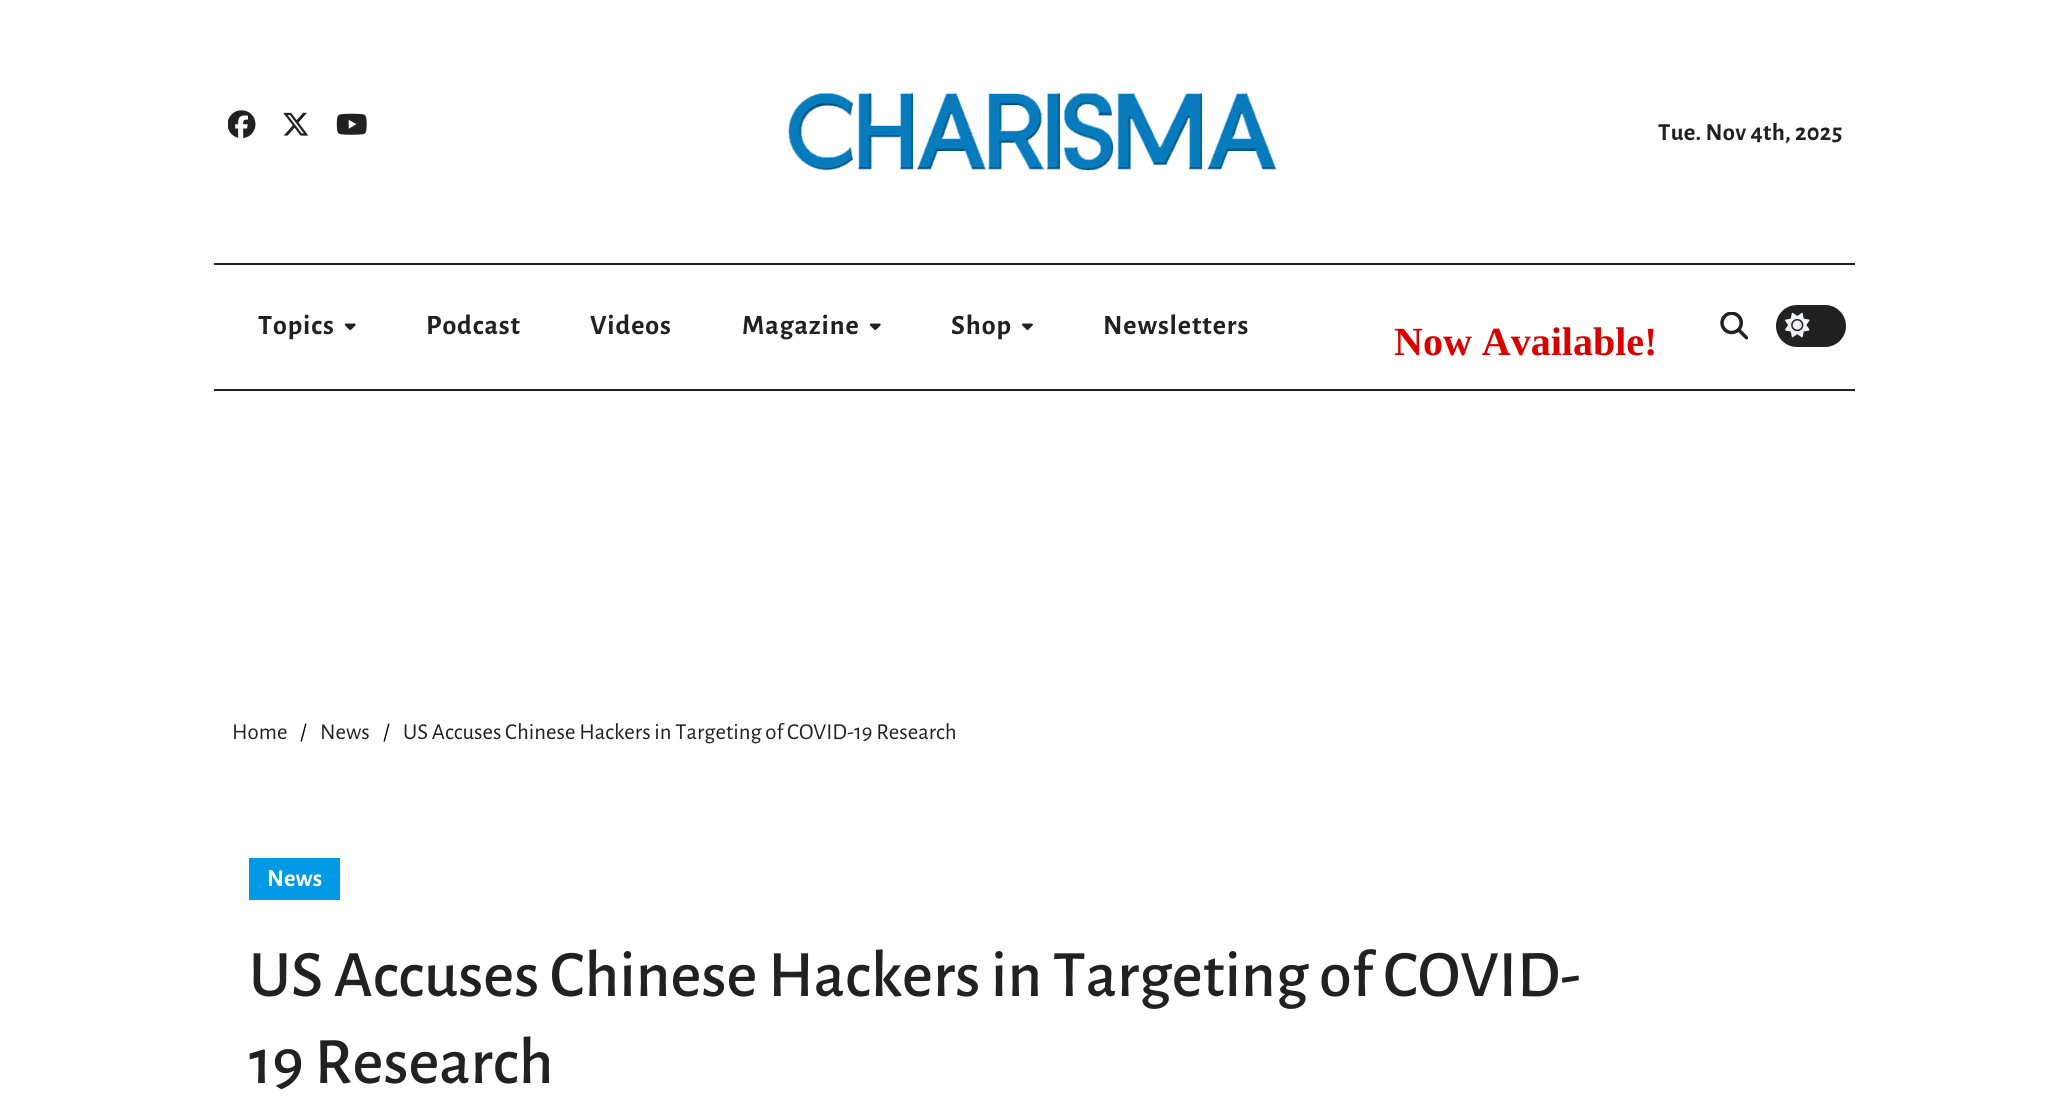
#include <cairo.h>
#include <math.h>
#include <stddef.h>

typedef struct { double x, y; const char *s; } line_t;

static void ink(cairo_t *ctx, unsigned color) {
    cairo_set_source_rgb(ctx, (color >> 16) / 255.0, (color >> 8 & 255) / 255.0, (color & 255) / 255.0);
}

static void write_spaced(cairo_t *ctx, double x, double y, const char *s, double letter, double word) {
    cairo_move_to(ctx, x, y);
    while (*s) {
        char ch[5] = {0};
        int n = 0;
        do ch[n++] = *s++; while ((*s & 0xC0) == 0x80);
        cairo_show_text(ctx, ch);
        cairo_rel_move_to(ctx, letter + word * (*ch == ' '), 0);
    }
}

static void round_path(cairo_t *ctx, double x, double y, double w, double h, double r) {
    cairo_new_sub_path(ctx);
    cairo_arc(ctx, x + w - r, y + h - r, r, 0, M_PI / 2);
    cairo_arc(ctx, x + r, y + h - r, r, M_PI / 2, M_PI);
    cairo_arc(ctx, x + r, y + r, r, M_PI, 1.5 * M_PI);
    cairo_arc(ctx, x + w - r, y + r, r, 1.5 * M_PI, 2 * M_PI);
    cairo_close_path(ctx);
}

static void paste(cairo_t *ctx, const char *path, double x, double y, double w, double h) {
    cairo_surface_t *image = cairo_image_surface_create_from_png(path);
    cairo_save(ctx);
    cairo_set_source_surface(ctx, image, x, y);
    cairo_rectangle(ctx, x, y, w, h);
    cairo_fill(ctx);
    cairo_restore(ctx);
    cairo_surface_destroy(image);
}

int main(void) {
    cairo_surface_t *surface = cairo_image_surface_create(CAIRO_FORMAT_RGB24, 2068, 1118);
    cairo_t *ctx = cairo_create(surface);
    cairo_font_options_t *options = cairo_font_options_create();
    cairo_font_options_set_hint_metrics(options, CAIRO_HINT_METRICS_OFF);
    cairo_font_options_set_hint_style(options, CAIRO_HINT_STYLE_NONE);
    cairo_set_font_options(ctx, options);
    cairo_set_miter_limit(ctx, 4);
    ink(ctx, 0xFFFFFF);
    cairo_paint(ctx);
    paste(ctx, "media/1.png", 228, 110, 28, 29);
    paste(ctx, "media/2.png", 283, 112, 26, 24);
    paste(ctx, "media/3.png", 336, 113, 31, 22);
    paste(ctx, "media/4.png", 788, 93, 489, 78);
    cairo_select_font_face(ctx, "Alegreya Sans", CAIRO_FONT_SLANT_NORMAL, CAIRO_FONT_WEIGHT_BOLD);
    cairo_set_font_size(ctx, 24.5);
    ink(ctx, 0x212121);
    write_spaced(ctx, 1658, 140, "Tue. Nov 4th, 2025", 0.3, 0);
    cairo_rectangle(ctx, 214, 263, 1641, 2);
    cairo_fill(ctx);
    cairo_rectangle(ctx, 214, 389, 1641, 2);
    cairo_fill(ctx);
    cairo_set_font_size(ctx, 28);
    write_spaced(ctx, 258, 334, "Topics", 0.9, 0);
    paste(ctx, "media/5.png", 344, 323, 12, 8);
    {
        static const line_t items[] = {
            {426, 334, "Podcast"},
            {590, 334, "Videos"},
            {742, 334, "Magazine"},
        };
        for (size_t i = 0; i < sizeof items / sizeof *items; i++) {
            write_spaced(ctx, items[i].x, items[i].y, items[i].s, 0.9, 0);
        }
    }
    paste(ctx, "media/5.png", 869, 323, 12, 8);
    write_spaced(ctx, 951, 334, "Shop", 0.9, 0);
    paste(ctx, "media/6.png", 1022, 323, 11, 8);
    write_spaced(ctx, 1103, 334, "Newsletters", 0.9, 0);
    cairo_select_font_face(ctx, "Liberation Serif", CAIRO_FONT_SLANT_NORMAL, CAIRO_FONT_WEIGHT_BOLD);
    cairo_set_font_size(ctx, 40);
    ink(ctx, 0xDA0000);
    cairo_move_to(ctx, 1394, 355);
    cairo_show_text(ctx, "Now Available!");
    paste(ctx, "media/7.png", 1720, 312, 28, 28);
    ink(ctx, 0x212121);
    round_path(ctx, 1776, 305, 70, 42, 21);
    cairo_fill(ctx);
    paste(ctx, "media/8.png", 1785, 312, 25, 26);
    cairo_select_font_face(ctx, "Alegreya Sans", CAIRO_FONT_SLANT_NORMAL, CAIRO_FONT_WEIGHT_NORMAL);
    cairo_set_font_size(ctx, 22.75);
    cairo_move_to(ctx, 232, 739);
    cairo_show_text(ctx, "Home");
    ink(ctx, 0x000000);
    cairo_move_to(ctx, 300, 739);
    cairo_show_text(ctx, "/");
    ink(ctx, 0x212121);
    cairo_move_to(ctx, 320, 739);
    cairo_show_text(ctx, "News");
    ink(ctx, 0x000000);
    cairo_move_to(ctx, 383, 739);
    cairo_show_text(ctx, "/");
    ink(ctx, 0x212121);
    cairo_move_to(ctx, 403, 739);
    cairo_show_text(ctx, "US Accuses Chinese Hackers in Targeting of COVID-19 Research");
    ink(ctx, 0x0099E5);
    cairo_rectangle(ctx, 249, 858, 91, 42);
    cairo_fill(ctx);
    cairo_select_font_face(ctx, "Alegreya Sans", CAIRO_FONT_SLANT_NORMAL, CAIRO_FONT_WEIGHT_BOLD);
    cairo_set_font_size(ctx, 24.5);
    ink(ctx, 0xFFFFFF);
    cairo_move_to(ctx, 267, 886);
    cairo_show_text(ctx, "News");
    cairo_select_font_face(ctx, "Alegreya Sans Medium", CAIRO_FONT_SLANT_NORMAL, CAIRO_FONT_WEIGHT_NORMAL);
    cairo_set_font_size(ctx, 66.5);
    ink(ctx, 0x212121);
    cairo_move_to(ctx, 249, 996);
    cairo_show_text(ctx, "US Accuses Chinese Hackers in Targeting of COVID-");
    cairo_move_to(ctx, 249, 1083);
    cairo_show_text(ctx, "19 Research");
    cairo_surface_write_to_png(surface, "image.png");
    cairo_font_options_destroy(options);
    cairo_destroy(ctx);
    cairo_surface_destroy(surface);
    return 0;
}
